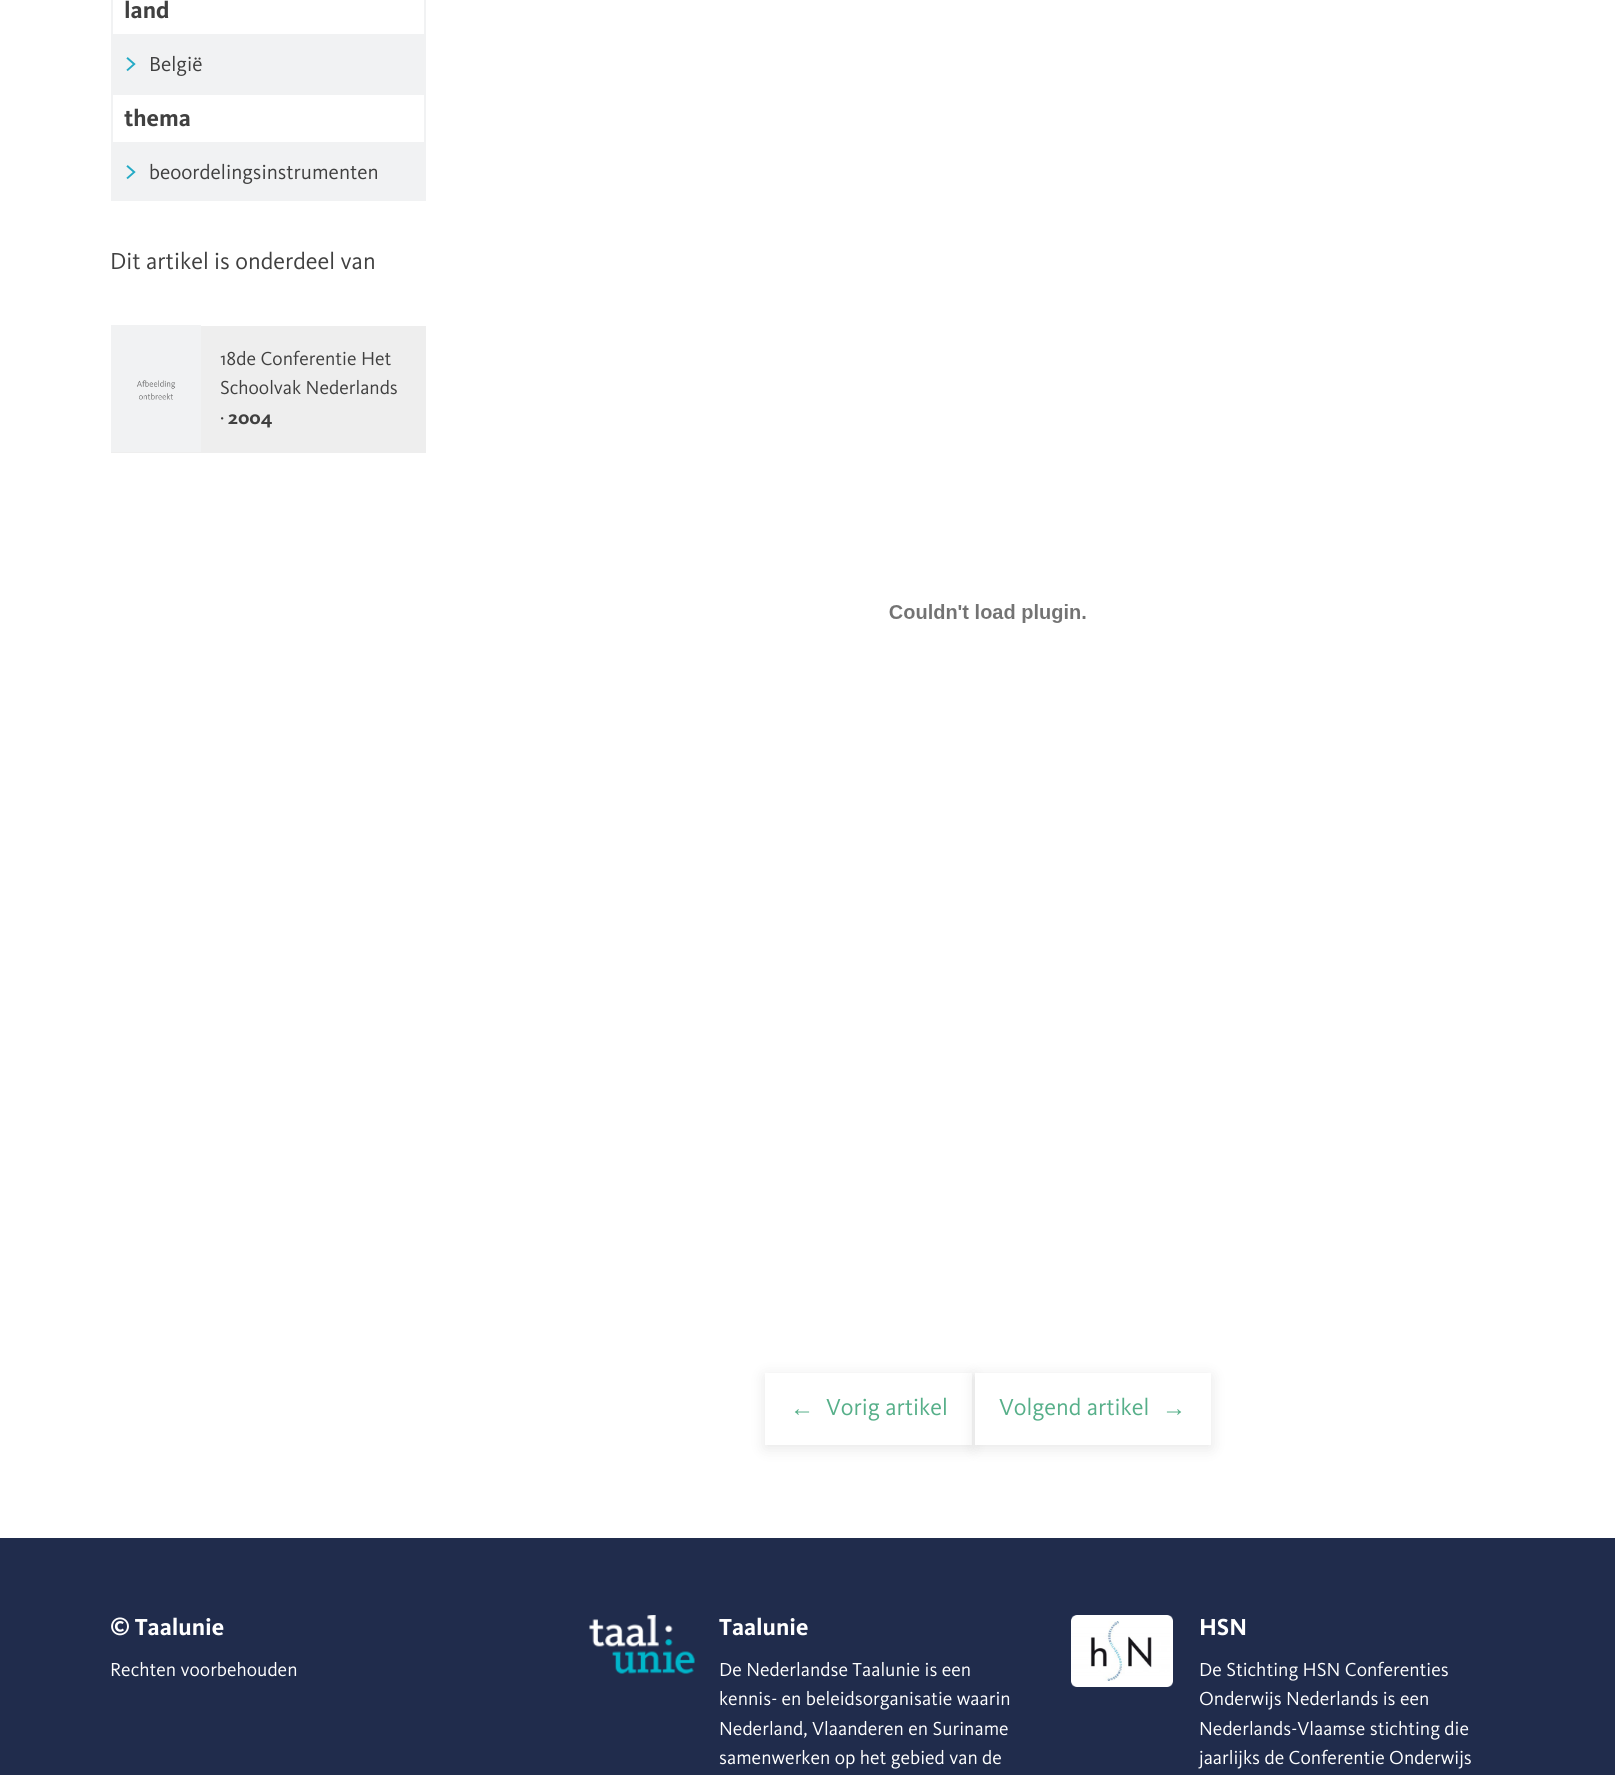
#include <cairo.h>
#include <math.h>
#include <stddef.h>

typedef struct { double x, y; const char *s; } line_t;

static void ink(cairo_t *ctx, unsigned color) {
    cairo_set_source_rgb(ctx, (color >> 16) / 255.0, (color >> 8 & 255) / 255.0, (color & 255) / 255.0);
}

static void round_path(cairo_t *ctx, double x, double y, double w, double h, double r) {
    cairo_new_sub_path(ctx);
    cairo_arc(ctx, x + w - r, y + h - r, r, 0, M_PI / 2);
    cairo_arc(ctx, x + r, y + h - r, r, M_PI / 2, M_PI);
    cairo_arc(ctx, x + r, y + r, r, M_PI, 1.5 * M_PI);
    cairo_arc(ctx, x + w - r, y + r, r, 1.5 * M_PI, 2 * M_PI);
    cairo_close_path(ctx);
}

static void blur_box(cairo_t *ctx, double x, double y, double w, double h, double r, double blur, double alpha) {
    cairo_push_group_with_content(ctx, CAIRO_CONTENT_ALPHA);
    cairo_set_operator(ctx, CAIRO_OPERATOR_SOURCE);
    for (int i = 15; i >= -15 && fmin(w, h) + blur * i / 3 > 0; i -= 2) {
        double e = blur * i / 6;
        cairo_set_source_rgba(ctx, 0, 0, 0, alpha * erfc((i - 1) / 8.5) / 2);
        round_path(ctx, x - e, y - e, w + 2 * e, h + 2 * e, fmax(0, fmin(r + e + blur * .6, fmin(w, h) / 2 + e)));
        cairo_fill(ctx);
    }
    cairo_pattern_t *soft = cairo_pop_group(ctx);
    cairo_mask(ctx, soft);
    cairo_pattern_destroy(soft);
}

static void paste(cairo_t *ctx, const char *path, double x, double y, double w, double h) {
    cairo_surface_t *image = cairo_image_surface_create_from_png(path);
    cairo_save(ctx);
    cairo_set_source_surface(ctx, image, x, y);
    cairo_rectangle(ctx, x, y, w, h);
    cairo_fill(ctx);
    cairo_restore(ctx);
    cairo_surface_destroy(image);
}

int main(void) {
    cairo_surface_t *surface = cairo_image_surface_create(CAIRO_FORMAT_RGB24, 1615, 1775);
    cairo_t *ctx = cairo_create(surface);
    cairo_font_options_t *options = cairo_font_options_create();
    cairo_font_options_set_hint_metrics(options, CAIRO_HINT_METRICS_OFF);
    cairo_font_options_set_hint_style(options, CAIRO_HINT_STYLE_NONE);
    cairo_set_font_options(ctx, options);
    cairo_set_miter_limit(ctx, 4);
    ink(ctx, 0xFFFFFF);
    cairo_paint(ctx);
    cairo_rectangle(ctx, 112, -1, 313, 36);
    ink(ctx, 0xF1F2F3);
    cairo_stroke(ctx);
    cairo_select_font_face(ctx, "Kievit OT", CAIRO_FONT_SLANT_NORMAL, CAIRO_FONT_WEIGHT_BOLD);
    cairo_set_font_size(ctx, 24);
    ink(ctx, 0x404040);
    cairo_move_to(ctx, 124, 18);
    cairo_show_text(ctx, "land");
    ink(ctx, 0xF1F2F3);
    cairo_rectangle(ctx, 111, 36, 315, 57);
    cairo_fill(ctx);
    cairo_select_font_face(ctx, "Kievit OT", CAIRO_FONT_SLANT_NORMAL, CAIRO_FONT_WEIGHT_NORMAL);
    cairo_set_font_size(ctx, 32);
    ink(ctx, 0x24AAC5);
    cairo_move_to(ctx, 125, 72);
    cairo_show_text(ctx, ">");
    cairo_set_font_size(ctx, 21);
    ink(ctx, 0x404040);
    cairo_move_to(ctx, 149, 71);
    cairo_show_text(ctx, "België");
    cairo_rectangle(ctx, 112, 94, 313, 49);
    ink(ctx, 0xF1F2F3);
    cairo_stroke(ctx);
    cairo_select_font_face(ctx, "Kievit OT", CAIRO_FONT_SLANT_NORMAL, CAIRO_FONT_WEIGHT_BOLD);
    cairo_set_font_size(ctx, 24);
    ink(ctx, 0x404040);
    cairo_move_to(ctx, 124, 126);
    cairo_show_text(ctx, "thema");
    ink(ctx, 0xF1F2F3);
    cairo_rectangle(ctx, 111, 144, 315, 57);
    cairo_fill(ctx);
    cairo_select_font_face(ctx, "Kievit OT", CAIRO_FONT_SLANT_NORMAL, CAIRO_FONT_WEIGHT_NORMAL);
    cairo_set_font_size(ctx, 32);
    ink(ctx, 0x24AAC5);
    cairo_move_to(ctx, 125, 180);
    cairo_show_text(ctx, ">");
    cairo_set_font_size(ctx, 21);
    ink(ctx, 0x404040);
    cairo_move_to(ctx, 149, 179);
    cairo_show_text(ctx, "beoordelingsinstrumenten");
    cairo_set_font_size(ctx, 24);
    cairo_move_to(ctx, 110, 269);
    cairo_show_text(ctx, "Dit artikel is onderdeel van");
    ink(ctx, 0xEEEEEE);
    cairo_rectangle(ctx, 111, 326, 315, 127);
    cairo_fill(ctx);
    paste(ctx, "media/1.png", 111, 325, 90, 127);
    cairo_set_font_size(ctx, 19.5);
    ink(ctx, 0x404040);
    {
        static const line_t items[] = {
            {220, 365, "18de Conferentie Het"},
            {220, 394, "Schoolvak Nederlands"},
            {220, 424, "·"},
        };
        for (size_t i = 0; i < sizeof items / sizeof *items; i++) {
            cairo_move_to(ctx, items[i].x, items[i].y);
            cairo_show_text(ctx, items[i].s);
        }
    }
    cairo_select_font_face(ctx, "Kievit OT", CAIRO_FONT_SLANT_NORMAL, CAIRO_FONT_WEIGHT_BOLD);
    cairo_move_to(ctx, 228, 424);
    cairo_show_text(ctx, "2004");
    paste(ctx, "media/2.png", 889, 604, 197, 19);
    ink(ctx, 0x000000);
    blur_box(ctx, 765, 1376, 207, 72, 0, 7.5, 0.1);
    ink(ctx, 0xFFFFFF);
    cairo_rectangle(ctx, 765, 1373, 207, 72);
    cairo_fill(ctx);
    cairo_select_font_face(ctx, "Liberation Sans", CAIRO_FONT_SLANT_NORMAL, CAIRO_FONT_WEIGHT_NORMAL);
    cairo_set_font_size(ctx, 24);
    ink(ctx, 0x56AF89);
    cairo_move_to(ctx, 790, 1416);
    cairo_show_text(ctx, "←");
    cairo_select_font_face(ctx, "Kievit OT", CAIRO_FONT_SLANT_NORMAL, CAIRO_FONT_WEIGHT_NORMAL);
    cairo_move_to(ctx, 826, 1415);
    cairo_show_text(ctx, "Vorig artikel");
    ink(ctx, 0x000000);
    blur_box(ctx, 975, 1376, 236, 72, 0, 7.5, 0.1);
    ink(ctx, 0xFFFFFF);
    cairo_rectangle(ctx, 975, 1373, 236, 72);
    cairo_fill(ctx);
    ink(ctx, 0x56AF89);
    cairo_move_to(ctx, 999, 1415);
    cairo_show_text(ctx, "Volgend artikel");
    cairo_select_font_face(ctx, "Liberation Sans", CAIRO_FONT_SLANT_NORMAL, CAIRO_FONT_WEIGHT_NORMAL);
    cairo_move_to(ctx, 1162, 1416);
    cairo_show_text(ctx, "→");
    ink(ctx, 0x202C4C);
    cairo_rectangle(ctx, 0, 1538, 1615, 237);
    cairo_fill(ctx);
    cairo_select_font_face(ctx, "Kievit OT", CAIRO_FONT_SLANT_NORMAL, CAIRO_FONT_WEIGHT_BOLD);
    ink(ctx, 0xFFFFFF);
    cairo_move_to(ctx, 110, 1635);
    cairo_show_text(ctx, "© Taalunie");
    cairo_select_font_face(ctx, "Kievit OT", CAIRO_FONT_SLANT_NORMAL, CAIRO_FONT_WEIGHT_NORMAL);
    cairo_set_font_size(ctx, 19.5);
    cairo_move_to(ctx, 110, 1676);
    cairo_show_text(ctx, "Rechten voorbehouden");
    paste(ctx, "media/3.png", 589, 1615, 106, 59);
    cairo_select_font_face(ctx, "Kievit OT", CAIRO_FONT_SLANT_NORMAL, CAIRO_FONT_WEIGHT_BOLD);
    cairo_set_font_size(ctx, 24);
    cairo_move_to(ctx, 719, 1635);
    cairo_show_text(ctx, "Taalunie");
    cairo_select_font_face(ctx, "Kievit OT", CAIRO_FONT_SLANT_NORMAL, CAIRO_FONT_WEIGHT_NORMAL);
    cairo_set_font_size(ctx, 19.5);
    {
        static const line_t items[] = {
            {719, 1676, "De Nederlandse Taalunie is een"},
            {719, 1705, "kennis- en beleidsorganisatie waarin"},
            {719, 1735, "Nederland, Vlaanderen en Suriname"},
            {719, 1764, "samenwerken op het gebied van de"},
        };
        for (size_t i = 0; i < sizeof items / sizeof *items; i++) {
            cairo_move_to(ctx, items[i].x, items[i].y);
            cairo_show_text(ctx, items[i].s);
        }
    }
    paste(ctx, "media/4.png", 1071, 1615, 102, 72);
    cairo_select_font_face(ctx, "Kievit OT", CAIRO_FONT_SLANT_NORMAL, CAIRO_FONT_WEIGHT_BOLD);
    cairo_set_font_size(ctx, 24);
    cairo_move_to(ctx, 1199, 1635);
    cairo_show_text(ctx, "HSN");
    cairo_select_font_face(ctx, "Kievit OT", CAIRO_FONT_SLANT_NORMAL, CAIRO_FONT_WEIGHT_NORMAL);
    cairo_set_font_size(ctx, 19.5);
    {
        static const line_t items[] = {
            {1199, 1676, "De Stichting HSN Conferenties"},
            {1199, 1705, "Onderwijs Nederlands is een"},
            {1199, 1735, "Nederlands-Vlaamse stichting die"},
            {1199, 1764, "jaarlijks de Conferentie Onderwijs"},
        };
        for (size_t i = 0; i < sizeof items / sizeof *items; i++) {
            cairo_move_to(ctx, items[i].x, items[i].y);
            cairo_show_text(ctx, items[i].s);
        }
    }
    cairo_surface_write_to_png(surface, "image.png");
    cairo_font_options_destroy(options);
    cairo_destroy(ctx);
    cairo_surface_destroy(surface);
    return 0;
}
